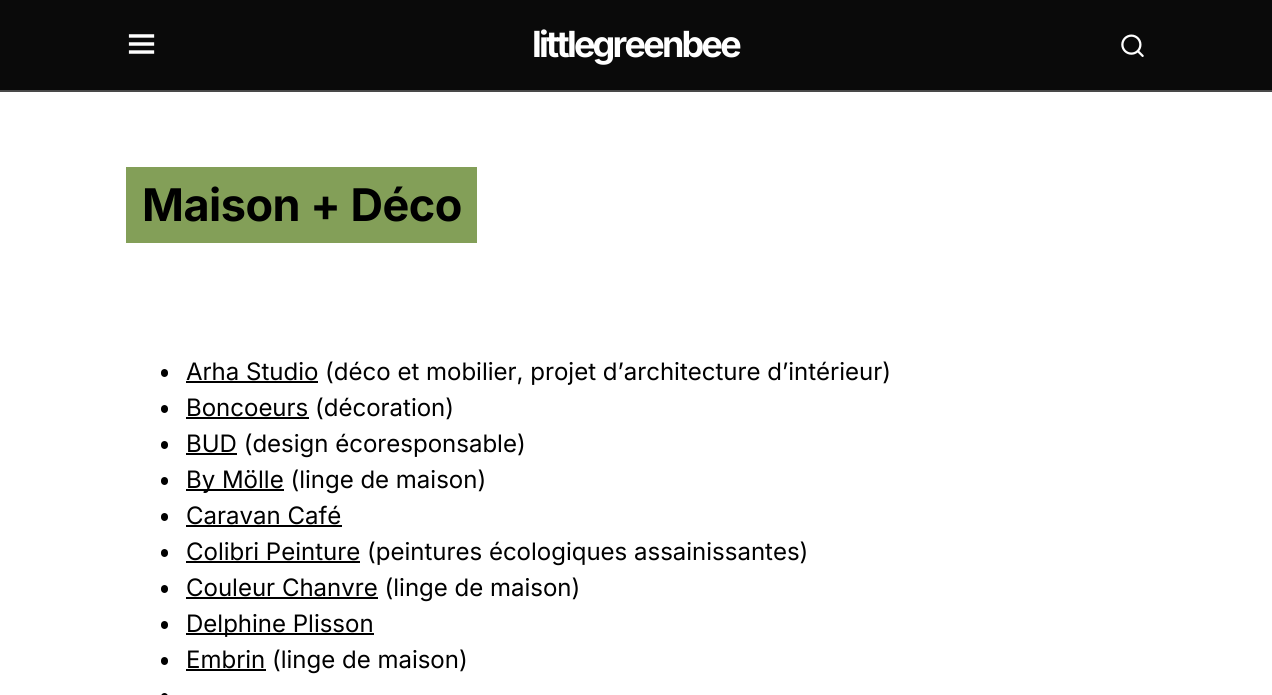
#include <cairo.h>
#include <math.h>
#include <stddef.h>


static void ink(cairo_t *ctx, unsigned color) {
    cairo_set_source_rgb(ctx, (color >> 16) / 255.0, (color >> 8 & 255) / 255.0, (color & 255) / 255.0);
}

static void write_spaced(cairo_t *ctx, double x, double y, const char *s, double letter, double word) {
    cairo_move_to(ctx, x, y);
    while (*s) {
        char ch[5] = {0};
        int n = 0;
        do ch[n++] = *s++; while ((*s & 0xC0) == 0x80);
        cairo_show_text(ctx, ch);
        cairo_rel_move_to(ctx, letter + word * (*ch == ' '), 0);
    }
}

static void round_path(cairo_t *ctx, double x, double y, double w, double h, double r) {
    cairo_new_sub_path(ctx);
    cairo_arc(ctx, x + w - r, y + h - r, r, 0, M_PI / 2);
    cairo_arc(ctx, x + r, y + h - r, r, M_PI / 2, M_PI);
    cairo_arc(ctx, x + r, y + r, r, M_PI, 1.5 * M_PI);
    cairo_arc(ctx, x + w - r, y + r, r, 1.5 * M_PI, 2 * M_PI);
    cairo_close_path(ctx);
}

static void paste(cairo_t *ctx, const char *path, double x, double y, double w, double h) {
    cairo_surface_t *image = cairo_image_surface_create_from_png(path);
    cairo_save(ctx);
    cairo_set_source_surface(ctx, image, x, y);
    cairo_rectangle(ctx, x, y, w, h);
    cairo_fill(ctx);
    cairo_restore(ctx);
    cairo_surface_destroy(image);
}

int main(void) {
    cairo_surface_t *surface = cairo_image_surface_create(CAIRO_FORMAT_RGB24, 1272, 695);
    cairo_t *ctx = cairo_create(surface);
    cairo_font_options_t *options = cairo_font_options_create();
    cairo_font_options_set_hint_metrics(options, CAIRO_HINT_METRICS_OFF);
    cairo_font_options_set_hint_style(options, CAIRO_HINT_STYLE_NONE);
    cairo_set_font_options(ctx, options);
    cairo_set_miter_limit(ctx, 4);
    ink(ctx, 0xFFFFFF);
    cairo_paint(ctx);
    ink(ctx, 0x0A0A0A);
    cairo_rectangle(ctx, 0, 0, 1272, 90);
    cairo_fill(ctx);
    ink(ctx, 0x494949);
    cairo_rectangle(ctx, 0, 90, 1272, 2);
    cairo_fill(ctx);
    paste(ctx, "media/1.png", 128, 34, 27, 20);
    cairo_select_font_face(ctx, "Inter", CAIRO_FONT_SLANT_NORMAL, CAIRO_FONT_WEIGHT_BOLD);
    cairo_set_font_size(ctx, 36);
    ink(ctx, 0xFFFFFF);
    write_spaced(ctx, 532, 57, "littlegreenbee", -2.75, 0);
    paste(ctx, "media/2.png", 1121, 34, 23, 23);
    ink(ctx, 0x839F58);
    cairo_rectangle(ctx, 126, 167, 351, 76);
    cairo_fill(ctx);
    cairo_set_font_size(ctx, 45);
    ink(ctx, 0x000000);
    write_spaced(ctx, 142, 221, "Maison + Déco", -0.5, 0);
    round_path(ctx, 161, 369, 7, 8, 3.5);
    cairo_fill(ctx);
    cairo_rectangle(ctx, 186, 381, 132, 2);
    cairo_fill(ctx);
    cairo_select_font_face(ctx, "Inter", CAIRO_FONT_SLANT_NORMAL, CAIRO_FONT_WEIGHT_NORMAL);
    cairo_set_font_size(ctx, 24);
    cairo_move_to(ctx, 186, 380);
    cairo_show_text(ctx, "Arha Studio (déco et mobilier, projet d’architecture d’intérieur)");
    round_path(ctx, 161, 405, 7, 8, 3.5);
    cairo_fill(ctx);
    cairo_rectangle(ctx, 186, 417, 123, 2);
    cairo_fill(ctx);
    cairo_move_to(ctx, 186, 416);
    cairo_show_text(ctx, "Boncoeurs (décoration)");
    round_path(ctx, 161, 441, 7, 8, 3.5);
    cairo_fill(ctx);
    cairo_rectangle(ctx, 186, 453, 51, 2);
    cairo_fill(ctx);
    cairo_move_to(ctx, 186, 452);
    cairo_show_text(ctx, "BUD (design écoresponsable)");
    round_path(ctx, 161, 477, 7, 8, 3.5);
    cairo_fill(ctx);
    cairo_rectangle(ctx, 186, 489, 98, 2);
    cairo_fill(ctx);
    cairo_move_to(ctx, 186, 488);
    cairo_show_text(ctx, "By Mölle (linge de maison)");
    round_path(ctx, 161, 513, 7, 8, 3.5);
    cairo_fill(ctx);
    cairo_move_to(ctx, 186, 524);
    cairo_show_text(ctx, "Caravan Café");
    cairo_rectangle(ctx, 186, 525, 156, 2);
    cairo_fill(ctx);
    round_path(ctx, 161, 549, 7, 8, 3.5);
    cairo_fill(ctx);
    cairo_rectangle(ctx, 186, 561, 174, 2);
    cairo_fill(ctx);
    cairo_move_to(ctx, 186, 560);
    cairo_show_text(ctx, "Colibri Peinture (peintures écologiques assainissantes)");
    round_path(ctx, 161, 585, 7, 8, 3.5);
    cairo_fill(ctx);
    cairo_rectangle(ctx, 186, 597, 192, 2);
    cairo_fill(ctx);
    cairo_move_to(ctx, 186, 596);
    cairo_show_text(ctx, "Couleur Chanvre (linge de maison)");
    round_path(ctx, 161, 621, 7, 8, 3.5);
    cairo_fill(ctx);
    cairo_rectangle(ctx, 186, 633, 188, 2);
    cairo_fill(ctx);
    cairo_move_to(ctx, 186, 632);
    cairo_show_text(ctx, "Delphine Plisson");
    round_path(ctx, 161, 657, 7, 8, 3.5);
    cairo_fill(ctx);
    cairo_rectangle(ctx, 186, 669, 80, 2);
    cairo_fill(ctx);
    cairo_move_to(ctx, 186, 668);
    cairo_show_text(ctx, "Embrin (linge de maison)");
    round_path(ctx, 161, 693, 7, 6, 3.5);
    cairo_fill(ctx);
    cairo_surface_write_to_png(surface, "image.png");
    cairo_font_options_destroy(options);
    cairo_destroy(ctx);
    cairo_surface_destroy(surface);
    return 0;
}
